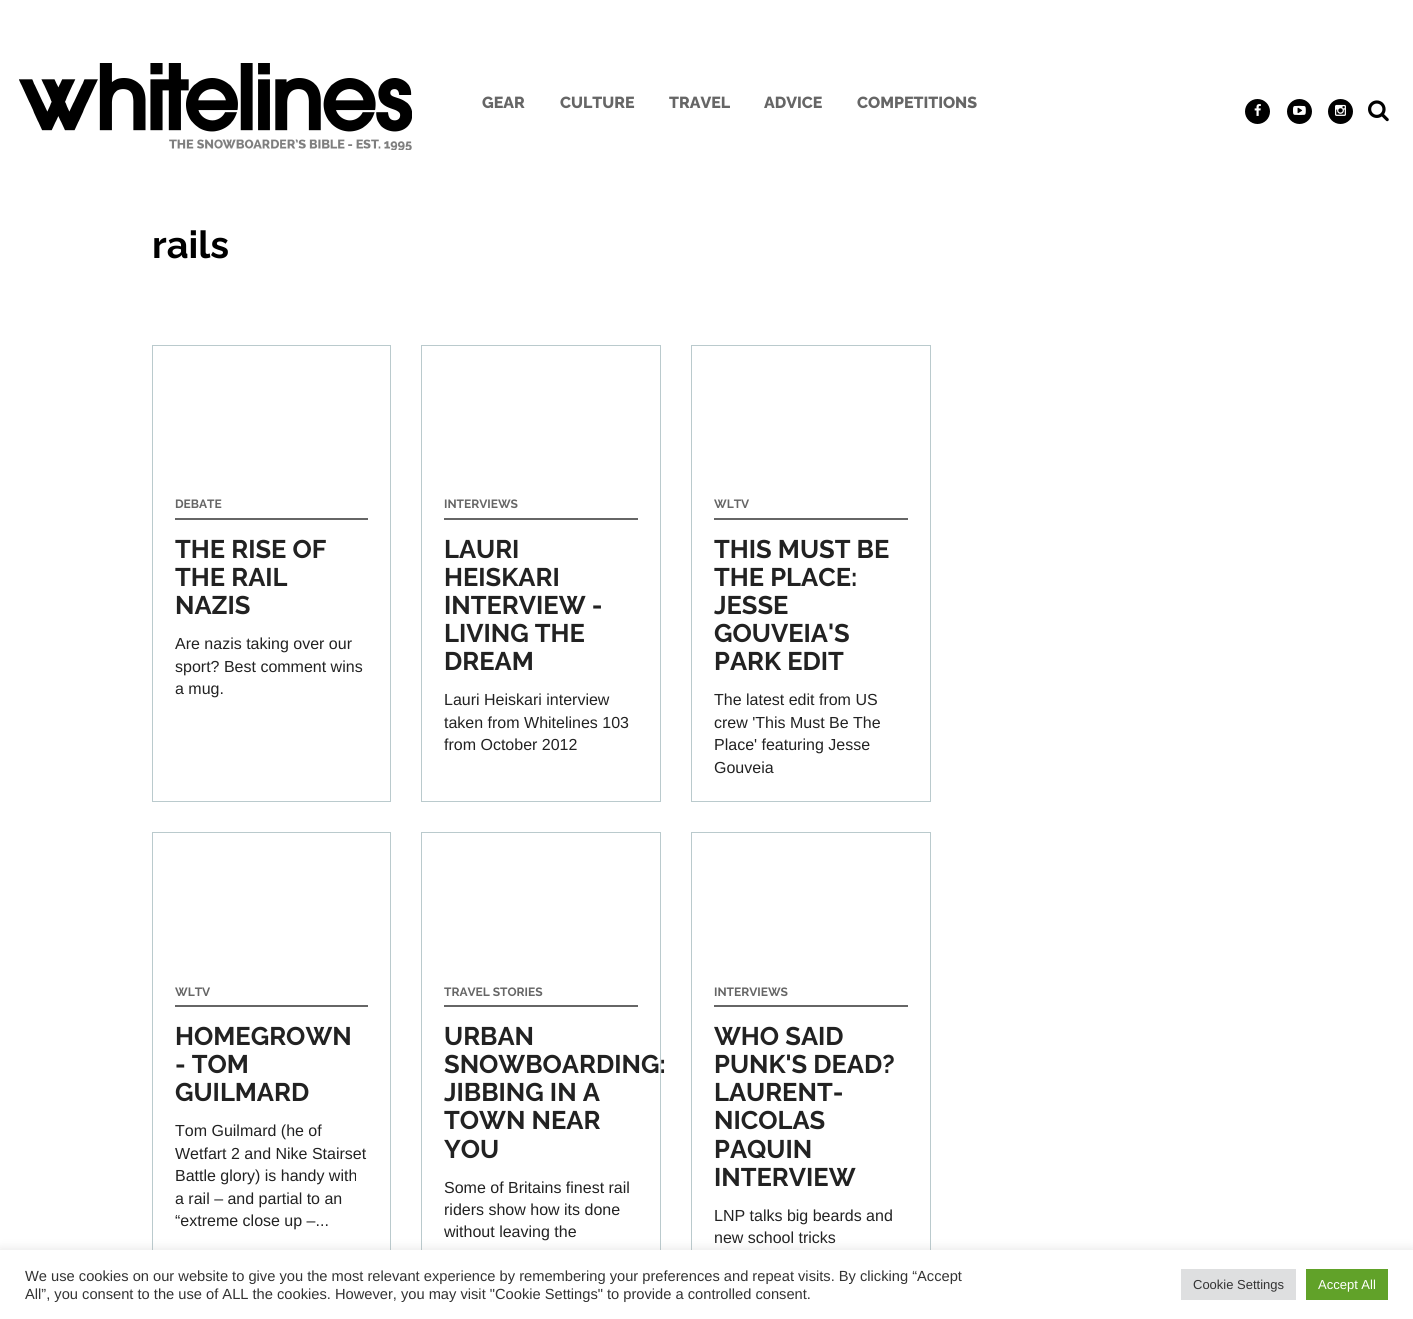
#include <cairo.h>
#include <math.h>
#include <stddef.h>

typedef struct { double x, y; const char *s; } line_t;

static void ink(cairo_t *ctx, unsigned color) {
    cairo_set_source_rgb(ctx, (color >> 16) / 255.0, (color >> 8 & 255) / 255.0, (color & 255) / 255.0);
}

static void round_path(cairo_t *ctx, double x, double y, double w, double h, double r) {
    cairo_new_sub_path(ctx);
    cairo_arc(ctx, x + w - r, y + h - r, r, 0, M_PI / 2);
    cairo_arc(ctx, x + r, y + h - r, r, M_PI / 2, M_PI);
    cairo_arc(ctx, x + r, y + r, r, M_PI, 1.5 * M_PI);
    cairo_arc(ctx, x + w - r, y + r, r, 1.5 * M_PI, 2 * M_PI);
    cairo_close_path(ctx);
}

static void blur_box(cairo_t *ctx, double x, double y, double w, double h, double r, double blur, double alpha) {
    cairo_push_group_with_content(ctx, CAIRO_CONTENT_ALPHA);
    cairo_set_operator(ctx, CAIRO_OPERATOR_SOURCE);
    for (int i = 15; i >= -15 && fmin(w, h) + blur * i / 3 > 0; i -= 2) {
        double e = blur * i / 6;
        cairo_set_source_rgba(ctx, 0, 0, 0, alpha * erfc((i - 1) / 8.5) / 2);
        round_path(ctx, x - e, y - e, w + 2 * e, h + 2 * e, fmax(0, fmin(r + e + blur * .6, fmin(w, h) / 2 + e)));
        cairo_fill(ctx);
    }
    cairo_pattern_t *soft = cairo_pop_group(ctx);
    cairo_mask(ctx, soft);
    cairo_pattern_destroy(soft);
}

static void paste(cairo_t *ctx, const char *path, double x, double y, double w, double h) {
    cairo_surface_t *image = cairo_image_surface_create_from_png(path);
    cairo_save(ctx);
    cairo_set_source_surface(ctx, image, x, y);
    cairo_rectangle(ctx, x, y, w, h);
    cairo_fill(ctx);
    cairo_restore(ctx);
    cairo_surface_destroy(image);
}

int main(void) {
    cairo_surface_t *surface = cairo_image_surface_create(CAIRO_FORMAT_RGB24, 1413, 1319);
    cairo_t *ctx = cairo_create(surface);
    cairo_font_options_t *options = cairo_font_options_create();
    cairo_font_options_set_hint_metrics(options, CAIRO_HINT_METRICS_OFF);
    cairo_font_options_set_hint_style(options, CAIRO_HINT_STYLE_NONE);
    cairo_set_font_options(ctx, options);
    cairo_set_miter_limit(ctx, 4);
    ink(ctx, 0xFFFFFF);
    cairo_paint(ctx);
    paste(ctx, "media/1.png", 19, 63, 393, 87);
    cairo_select_font_face(ctx, "Raleway ExtraBold", CAIRO_FONT_SLANT_NORMAL, CAIRO_FONT_WEIGHT_NORMAL);
    cairo_set_font_size(ctx, 16);
    ink(ctx, 0x666666);
    {
        static const line_t items[] = {
            {482, 108, "GEAR"},
            {560, 108, "CULTURE"},
            {669, 108, "TRAVEL"},
            {764, 108, "ADVICE"},
            {857, 108, "COMPETITIONS"},
        };
        for (size_t i = 0; i < sizeof items / sizeof *items; i++) {
            cairo_move_to(ctx, items[i].x, items[i].y);
            cairo_show_text(ctx, items[i].s);
        }
    }
    ink(ctx, 0x000000);
    cairo_new_path(ctx);
    cairo_arc(ctx, 1257.5, 111.5, 12.5, 0, 2 * M_PI);
    cairo_fill(ctx);
    paste(ctx, "media/2.png", 1254, 104, 7, 12);
    cairo_arc(ctx, 1299.5, 111.5, 12.5, 0, 2 * M_PI);
    cairo_fill(ctx);
    paste(ctx, "media/3.png", 1293, 105, 13, 10);
    cairo_arc(ctx, 1340.5, 111.5, 12.5, 0, 2 * M_PI);
    cairo_fill(ctx);
    paste(ctx, "media/4.png", 1335, 104, 11, 12);
    paste(ctx, "media/5.png", 1368, 100, 21, 22);
    cairo_select_font_face(ctx, "Raleway", CAIRO_FONT_SLANT_NORMAL, CAIRO_FONT_WEIGHT_BOLD);
    cairo_set_font_size(ctx, 38);
    cairo_move_to(ctx, 152, 258);
    cairo_show_text(ctx, "rails");
    cairo_rectangle(ctx, 152.5, 345.5, 238, 456);
    ink(ctx, 0xBACACD);
    cairo_set_line_width(ctx, 1);
    cairo_stroke(ctx);
    ink(ctx, 0x666666);
    cairo_rectangle(ctx, 175, 518, 193, 2);
    cairo_fill(ctx);
    cairo_set_font_size(ctx, 12);
    cairo_move_to(ctx, 175, 508);
    cairo_show_text(ctx, "DEBATE");
    cairo_set_font_size(ctx, 25.5);
    ink(ctx, 0x222222);
    {
        static const line_t items[] = {
            {175, 558, "THE RISE OF"},
            {175, 586, "THE RAIL"},
            {175, 614, "NAZIS"},
        };
        for (size_t i = 0; i < sizeof items / sizeof *items; i++) {
            cairo_move_to(ctx, items[i].x, items[i].y);
            cairo_show_text(ctx, items[i].s);
        }
    }
    cairo_select_font_face(ctx, "Liberation Sans", CAIRO_FONT_SLANT_NORMAL, CAIRO_FONT_WEIGHT_NORMAL);
    cairo_set_font_size(ctx, 16);
    {
        static const line_t items[] = {
            {175, 649, "Are nazis taking over our"},
            {175, 672, "sport? Best comment wins"},
            {175, 694, "a mug."},
        };
        for (size_t i = 0; i < sizeof items / sizeof *items; i++) {
            cairo_move_to(ctx, items[i].x, items[i].y);
            cairo_show_text(ctx, items[i].s);
        }
    }
    cairo_rectangle(ctx, 421.5, 345.5, 239, 456);
    ink(ctx, 0xBACACD);
    cairo_stroke(ctx);
    ink(ctx, 0x666666);
    cairo_rectangle(ctx, 444, 518, 194, 2);
    cairo_fill(ctx);
    cairo_select_font_face(ctx, "Raleway", CAIRO_FONT_SLANT_NORMAL, CAIRO_FONT_WEIGHT_BOLD);
    cairo_set_font_size(ctx, 12);
    cairo_move_to(ctx, 444, 508);
    cairo_show_text(ctx, "INTERVIEWS");
    cairo_set_font_size(ctx, 25.5);
    ink(ctx, 0x222222);
    {
        static const line_t items[] = {
            {444, 558, "LAURI"},
            {444, 586, "HEISKARI"},
            {444, 614, "INTERVIEW -"},
            {444, 642, "LIVING THE"},
            {444, 670, "DREAM"},
        };
        for (size_t i = 0; i < sizeof items / sizeof *items; i++) {
            cairo_move_to(ctx, items[i].x, items[i].y);
            cairo_show_text(ctx, items[i].s);
        }
    }
    cairo_select_font_face(ctx, "Liberation Sans", CAIRO_FONT_SLANT_NORMAL, CAIRO_FONT_WEIGHT_NORMAL);
    cairo_set_font_size(ctx, 16);
    {
        static const line_t items[] = {
            {444, 705, "Lauri Heiskari interview"},
            {444, 728, "taken from Whitelines 103"},
            {444, 750, "from October 2012"},
        };
        for (size_t i = 0; i < sizeof items / sizeof *items; i++) {
            cairo_move_to(ctx, items[i].x, items[i].y);
            cairo_show_text(ctx, items[i].s);
        }
    }
    cairo_rectangle(ctx, 691.5, 345.5, 239, 456);
    ink(ctx, 0xBACACD);
    cairo_stroke(ctx);
    ink(ctx, 0x666666);
    cairo_rectangle(ctx, 714, 518, 194, 2);
    cairo_fill(ctx);
    cairo_select_font_face(ctx, "Raleway", CAIRO_FONT_SLANT_NORMAL, CAIRO_FONT_WEIGHT_BOLD);
    cairo_set_font_size(ctx, 12);
    cairo_move_to(ctx, 714, 508);
    cairo_show_text(ctx, "WLTV");
    cairo_set_font_size(ctx, 25.5);
    ink(ctx, 0x222222);
    {
        static const line_t items[] = {
            {714, 558, "THIS MUST BE"},
            {714, 586, "THE PLACE:"},
            {714, 614, "JESSE"},
            {714, 642, "GOUVEIA'S"},
            {714, 670, "PARK EDIT"},
        };
        for (size_t i = 0; i < sizeof items / sizeof *items; i++) {
            cairo_move_to(ctx, items[i].x, items[i].y);
            cairo_show_text(ctx, items[i].s);
        }
    }
    cairo_select_font_face(ctx, "Liberation Sans", CAIRO_FONT_SLANT_NORMAL, CAIRO_FONT_WEIGHT_NORMAL);
    cairo_set_font_size(ctx, 16);
    {
        static const line_t items[] = {
            {714, 705, "The latest edit from US"},
            {714, 728, "crew 'This Must Be The"},
            {714, 750, "Place' featuring Jesse"},
            {714, 773, "Gouveia"},
        };
        for (size_t i = 0; i < sizeof items / sizeof *items; i++) {
            cairo_move_to(ctx, items[i].x, items[i].y);
            cairo_show_text(ctx, items[i].s);
        }
    }
    cairo_rectangle(ctx, 152.5, 832.5, 238, 457);
    ink(ctx, 0xBACACD);
    cairo_stroke(ctx);
    ink(ctx, 0x666666);
    cairo_rectangle(ctx, 175, 1005, 193, 2);
    cairo_fill(ctx);
    cairo_select_font_face(ctx, "Raleway", CAIRO_FONT_SLANT_NORMAL, CAIRO_FONT_WEIGHT_BOLD);
    cairo_set_font_size(ctx, 12);
    cairo_move_to(ctx, 175, 996);
    cairo_show_text(ctx, "WLTV");
    cairo_set_font_size(ctx, 25.5);
    ink(ctx, 0x222222);
    {
        static const line_t items[] = {
            {175, 1045, "HOMEGROWN"},
            {175, 1073, "- TOM"},
            {175, 1101, "GUILMARD"},
        };
        for (size_t i = 0; i < sizeof items / sizeof *items; i++) {
            cairo_move_to(ctx, items[i].x, items[i].y);
            cairo_show_text(ctx, items[i].s);
        }
    }
    cairo_select_font_face(ctx, "Liberation Sans", CAIRO_FONT_SLANT_NORMAL, CAIRO_FONT_WEIGHT_NORMAL);
    cairo_set_font_size(ctx, 16);
    {
        static const line_t items[] = {
            {175, 1136, "Tom Guilmard (he of"},
            {175, 1159, "Wetfart 2 and Nike Stairset"},
            {175, 1181, "Battle glory) is handy with"},
            {175, 1204, "a rail – and partial to an"},
            {175, 1226, "“extreme close up –..."},
        };
        for (size_t i = 0; i < sizeof items / sizeof *items; i++) {
            cairo_move_to(ctx, items[i].x, items[i].y);
            cairo_show_text(ctx, items[i].s);
        }
    }
    cairo_rectangle(ctx, 421.5, 832.5, 239, 457);
    ink(ctx, 0xBACACD);
    cairo_stroke(ctx);
    ink(ctx, 0x666666);
    cairo_rectangle(ctx, 444, 1005, 194, 2);
    cairo_fill(ctx);
    cairo_select_font_face(ctx, "Raleway", CAIRO_FONT_SLANT_NORMAL, CAIRO_FONT_WEIGHT_BOLD);
    cairo_set_font_size(ctx, 12);
    cairo_move_to(ctx, 444, 996);
    cairo_show_text(ctx, "TRAVEL STORIES");
    cairo_set_font_size(ctx, 25.5);
    ink(ctx, 0x222222);
    {
        static const line_t items[] = {
            {444, 1045, "URBAN"},
            {444, 1073, "SNOWBOARDING:"},
            {444, 1101, "JIBBING IN A"},
            {444, 1129, "TOWN NEAR"},
            {444, 1158, "YOU"},
        };
        for (size_t i = 0; i < sizeof items / sizeof *items; i++) {
            cairo_move_to(ctx, items[i].x, items[i].y);
            cairo_show_text(ctx, items[i].s);
        }
    }
    cairo_select_font_face(ctx, "Liberation Sans", CAIRO_FONT_SLANT_NORMAL, CAIRO_FONT_WEIGHT_NORMAL);
    cairo_set_font_size(ctx, 16);
    {
        static const line_t items[] = {
            {444, 1193, "Some of Britains finest rail"},
            {444, 1215, "riders show how its done"},
            {444, 1237, "without leaving the"},
        };
        for (size_t i = 0; i < sizeof items / sizeof *items; i++) {
            cairo_move_to(ctx, items[i].x, items[i].y);
            cairo_show_text(ctx, items[i].s);
        }
    }
    cairo_rectangle(ctx, 691.5, 832.5, 239, 457);
    ink(ctx, 0xBACACD);
    cairo_stroke(ctx);
    ink(ctx, 0x666666);
    cairo_rectangle(ctx, 714, 1005, 194, 2);
    cairo_fill(ctx);
    cairo_select_font_face(ctx, "Raleway", CAIRO_FONT_SLANT_NORMAL, CAIRO_FONT_WEIGHT_BOLD);
    cairo_set_font_size(ctx, 12);
    cairo_move_to(ctx, 714, 996);
    cairo_show_text(ctx, "INTERVIEWS");
    cairo_set_font_size(ctx, 25.5);
    ink(ctx, 0x222222);
    {
        static const line_t items[] = {
            {714, 1045, "WHO SAID"},
            {714, 1073, "PUNK'S DEAD?"},
            {714, 1101, "LAURENT-"},
            {714, 1129, "NICOLAS"},
            {714, 1158, "PAQUIN"},
            {714, 1186, "INTERVIEW"},
        };
        for (size_t i = 0; i < sizeof items / sizeof *items; i++) {
            cairo_move_to(ctx, items[i].x, items[i].y);
            cairo_show_text(ctx, items[i].s);
        }
    }
    cairo_select_font_face(ctx, "Liberation Sans", CAIRO_FONT_SLANT_NORMAL, CAIRO_FONT_WEIGHT_NORMAL);
    cairo_set_font_size(ctx, 16);
    cairo_move_to(ctx, 714, 1221);
    cairo_show_text(ctx, "LNP talks big beards and");
    cairo_move_to(ctx, 714, 1243);
    cairo_show_text(ctx, "new school tricks");
    ink(ctx, 0xACABAB);
    blur_box(ctx, 0, 1249, 1413, 69, 0, 5, 0.3);
    ink(ctx, 0xFFFFFF);
    cairo_rectangle(ctx, 0, 1250, 1413, 69);
    cairo_fill(ctx);
    cairo_set_font_size(ctx, 14.67);
    ink(ctx, 0x333333);
    cairo_move_to(ctx, 25, 1281);
    cairo_show_text(ctx, "We use cookies on our website to give you the most relevant experience by remembering your preferences and repeat visits. By clicking “Accept");
    cairo_move_to(ctx, 25, 1299);
    cairo_show_text(ctx, "All”, you consent to the use of ALL the cookies. However, you may visit \"Cookie Settings\" to provide a controlled consent.");
    ink(ctx, 0xDEDFE0);
    cairo_rectangle(ctx, 1181, 1269, 115, 31);
    cairo_fill(ctx);
    cairo_set_font_size(ctx, 13);
    ink(ctx, 0x333333);
    cairo_move_to(ctx, 1193, 1289);
    cairo_show_text(ctx, "Cookie Settings");
    ink(ctx, 0x61A229);
    cairo_rectangle(ctx, 1306, 1269, 82, 31);
    cairo_fill(ctx);
    ink(ctx, 0xFFFFFF);
    cairo_move_to(ctx, 1318, 1289);
    cairo_show_text(ctx, "Accept All");
    cairo_surface_write_to_png(surface, "image.png");
    cairo_font_options_destroy(options);
    cairo_destroy(ctx);
    cairo_surface_destroy(surface);
    return 0;
}
